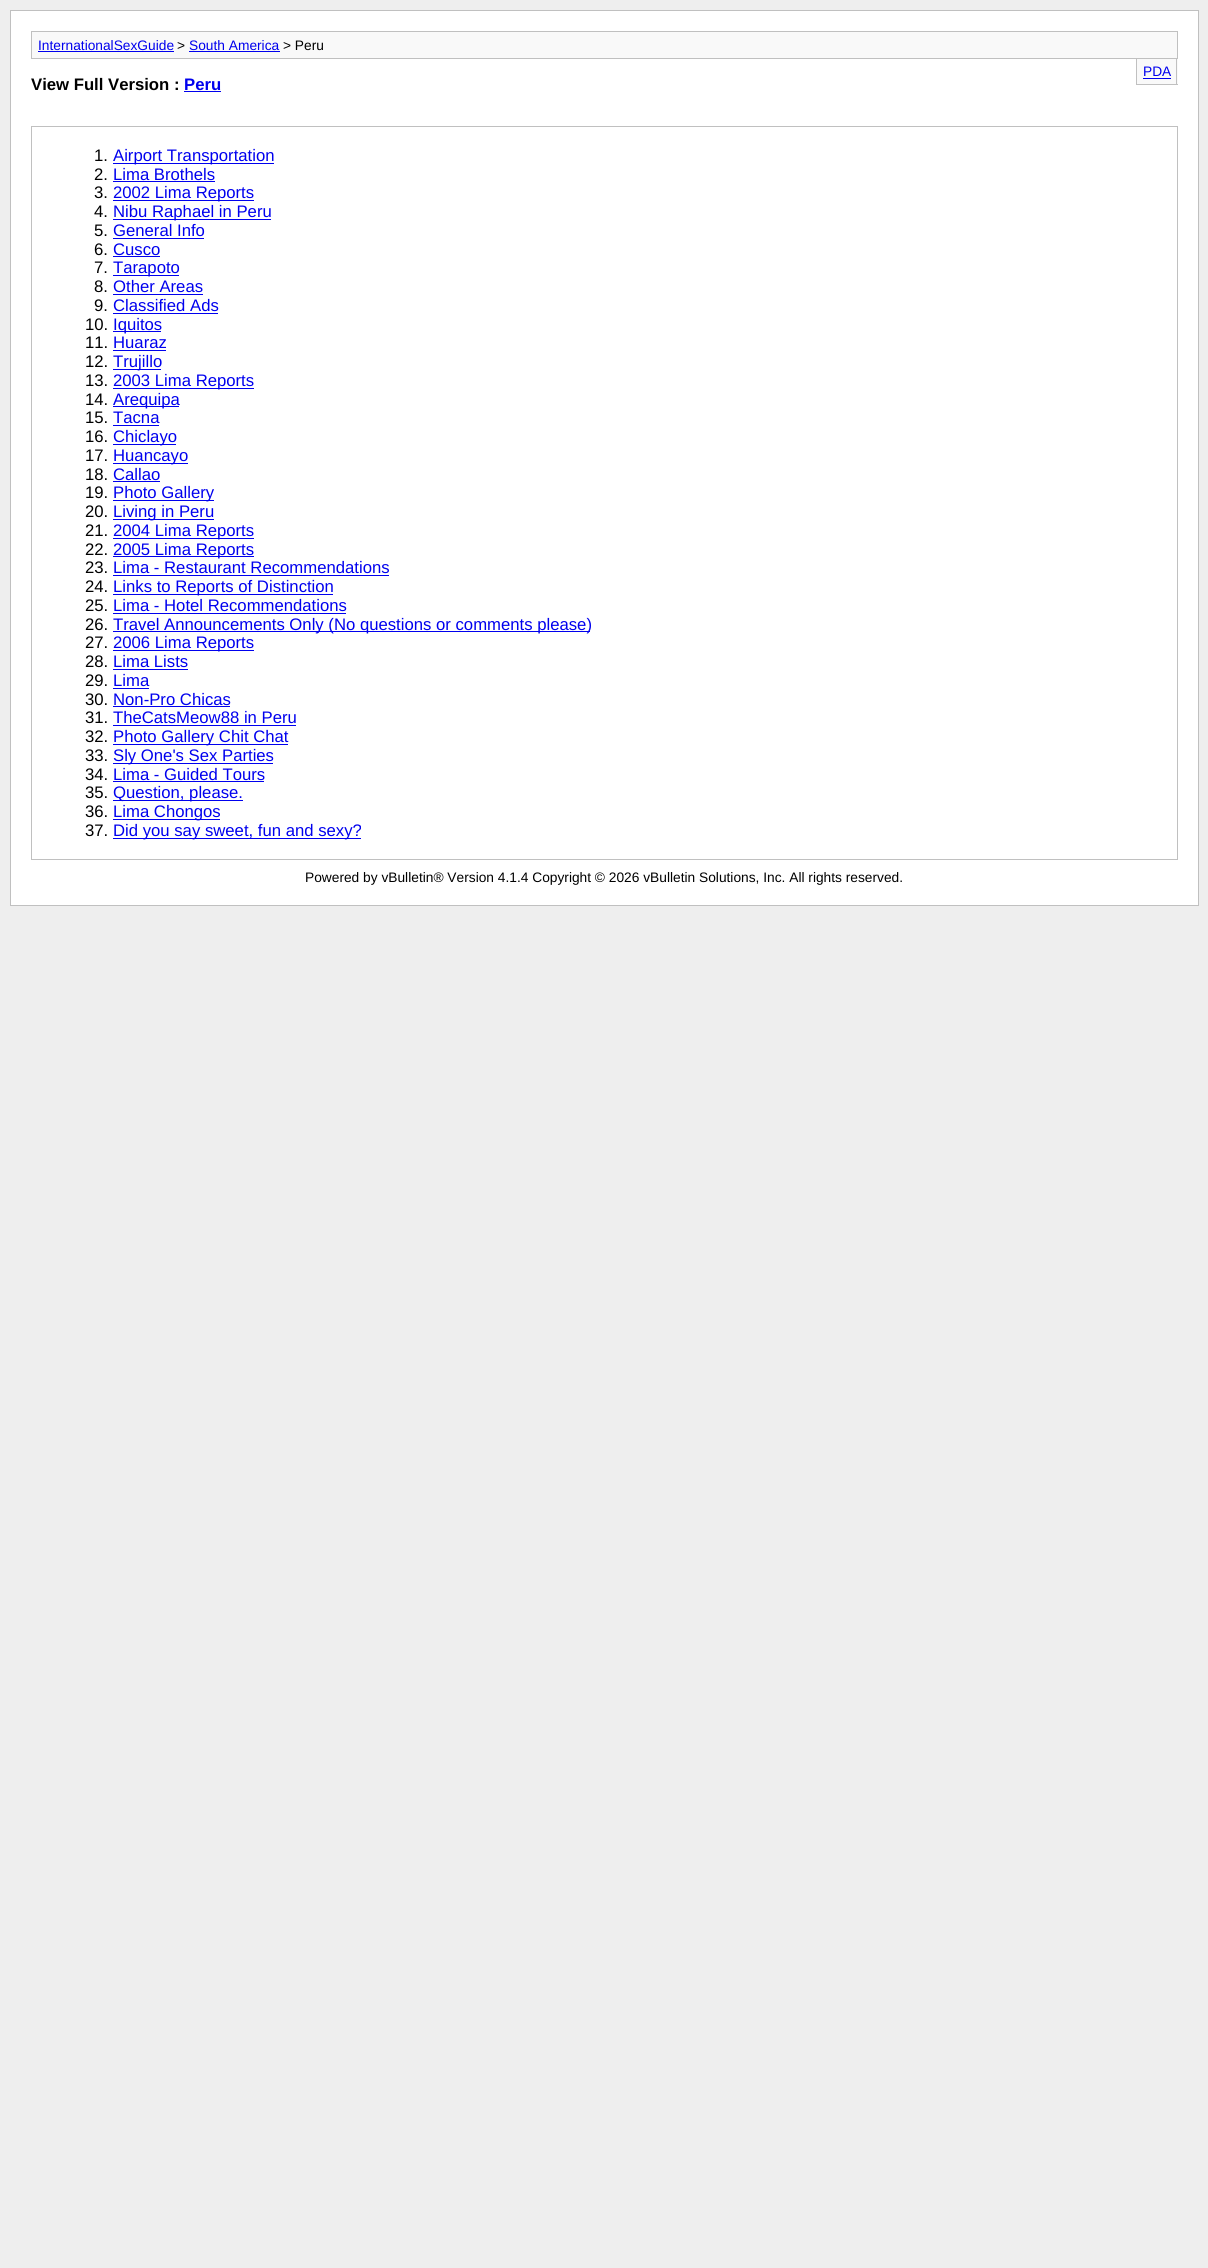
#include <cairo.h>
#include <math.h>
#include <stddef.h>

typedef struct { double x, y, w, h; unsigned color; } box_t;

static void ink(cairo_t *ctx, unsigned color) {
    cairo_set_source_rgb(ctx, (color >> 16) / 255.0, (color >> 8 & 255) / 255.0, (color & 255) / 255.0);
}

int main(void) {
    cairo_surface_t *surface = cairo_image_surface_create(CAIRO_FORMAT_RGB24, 1208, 2268);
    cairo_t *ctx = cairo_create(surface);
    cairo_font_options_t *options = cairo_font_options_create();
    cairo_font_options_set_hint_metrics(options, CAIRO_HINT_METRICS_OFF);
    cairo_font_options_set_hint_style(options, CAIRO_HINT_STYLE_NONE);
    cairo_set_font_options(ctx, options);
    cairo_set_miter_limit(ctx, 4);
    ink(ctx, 0xEEEEEE);
    cairo_paint(ctx);
    ink(ctx, 0xFFFFFF);
    cairo_rectangle(ctx, 10.5, 10.5, 1188, 895);
    cairo_fill_preserve(ctx);
    ink(ctx, 0xC0C0C0);
    cairo_set_line_width(ctx, 1);
    cairo_stroke(ctx);
    ink(ctx, 0xF9F9F9);
    cairo_rectangle(ctx, 31.5, 31.5, 1146, 27);
    cairo_fill_preserve(ctx);
    ink(ctx, 0xC0C0C0);
    cairo_stroke(ctx);
    cairo_select_font_face(ctx, "Liberation Sans", CAIRO_FONT_SLANT_NORMAL, CAIRO_FONT_WEIGHT_NORMAL);
    cairo_set_font_size(ctx, 13.75);
    ink(ctx, 0x0000EE);
    cairo_move_to(ctx, 38, 50);
    cairo_show_text(ctx, "InternationalSexGuide");
    cairo_rectangle(ctx, 38, 51, 136, 1);
    cairo_fill(ctx);
    ink(ctx, 0x000000);
    cairo_move_to(ctx, 177, 50);
    cairo_show_text(ctx, ">");
    ink(ctx, 0x0000EE);
    cairo_move_to(ctx, 189, 50);
    cairo_show_text(ctx, "South America");
    cairo_rectangle(ctx, 189, 51, 91, 1);
    cairo_fill(ctx);
    ink(ctx, 0x000000);
    cairo_move_to(ctx, 283, 50);
    cairo_show_text(ctx, "> Peru");
    {
        static const box_t items[] = {
            {1137, 59, 41, 25, 0xF9F9F9},
            {1176, 59, 1, 26, 0xC0C0C0},
            {1136, 84, 42, 1, 0xC0C0C0},
            {1136, 59, 1, 26, 0xC0C0C0},
        };
        for (size_t i = 0; i < sizeof items / sizeof *items; i++) {
            ink(ctx, items[i].color);
            cairo_rectangle(ctx, items[i].x, items[i].y, items[i].w, items[i].h);
            cairo_fill(ctx);
        }
    }
    ink(ctx, 0x0000EE);
    cairo_move_to(ctx, 1143, 76);
    cairo_show_text(ctx, "PDA");
    cairo_rectangle(ctx, 1143, 78, 28, 1);
    cairo_fill(ctx);
    cairo_select_font_face(ctx, "Liberation Sans", CAIRO_FONT_SLANT_NORMAL, CAIRO_FONT_WEIGHT_BOLD);
    cairo_set_font_size(ctx, 16.7);
    ink(ctx, 0x000000);
    cairo_move_to(ctx, 31, 90);
    cairo_show_text(ctx, "View Full Version :");
    ink(ctx, 0x0000EE);
    cairo_move_to(ctx, 184, 90);
    cairo_show_text(ctx, "Peru");
    cairo_rectangle(ctx, 184, 91, 37, 1);
    cairo_fill(ctx);
    cairo_rectangle(ctx, 31.5, 126.5, 1146, 733);
    ink(ctx, 0xC0C0C0);
    cairo_stroke(ctx);
    cairo_select_font_face(ctx, "Liberation Sans", CAIRO_FONT_SLANT_NORMAL, CAIRO_FONT_WEIGHT_NORMAL);
    ink(ctx, 0x000000);
    cairo_move_to(ctx, 94, 161);
    cairo_show_text(ctx, "1.");
    ink(ctx, 0x0000EE);
    cairo_rectangle(ctx, 113, 163, 161, 1);
    cairo_fill(ctx);
    cairo_move_to(ctx, 113, 161);
    cairo_show_text(ctx, "Airport Transportation");
    ink(ctx, 0x000000);
    cairo_move_to(ctx, 94, 180);
    cairo_show_text(ctx, "2.");
    ink(ctx, 0x0000EE);
    cairo_move_to(ctx, 113, 180);
    cairo_show_text(ctx, "Lima Brothels");
    cairo_rectangle(ctx, 113, 181, 102, 1);
    cairo_fill(ctx);
    ink(ctx, 0x000000);
    cairo_move_to(ctx, 94, 198);
    cairo_show_text(ctx, "3.");
    ink(ctx, 0x0000EE);
    cairo_rectangle(ctx, 113, 200, 141, 1);
    cairo_fill(ctx);
    cairo_move_to(ctx, 113, 198);
    cairo_show_text(ctx, "2002 Lima Reports");
    ink(ctx, 0x000000);
    cairo_move_to(ctx, 94, 217);
    cairo_show_text(ctx, "4.");
    ink(ctx, 0x0000EE);
    cairo_rectangle(ctx, 113, 219, 158, 1);
    cairo_fill(ctx);
    cairo_move_to(ctx, 113, 217);
    cairo_show_text(ctx, "Nibu Raphael in Peru");
    ink(ctx, 0x000000);
    cairo_move_to(ctx, 94, 236);
    cairo_show_text(ctx, "5.");
    ink(ctx, 0x0000EE);
    cairo_move_to(ctx, 113, 236);
    cairo_show_text(ctx, "General Info");
    cairo_rectangle(ctx, 113, 238, 91, 1);
    cairo_fill(ctx);
    ink(ctx, 0x000000);
    cairo_move_to(ctx, 94, 255);
    cairo_show_text(ctx, "6.");
    ink(ctx, 0x0000EE);
    cairo_move_to(ctx, 113, 255);
    cairo_show_text(ctx, "Cusco");
    cairo_rectangle(ctx, 113, 256, 47, 1);
    cairo_fill(ctx);
    ink(ctx, 0x000000);
    cairo_move_to(ctx, 94, 273);
    cairo_show_text(ctx, "7.");
    ink(ctx, 0x0000EE);
    cairo_rectangle(ctx, 113, 275, 66, 1);
    cairo_fill(ctx);
    cairo_move_to(ctx, 113, 273);
    cairo_show_text(ctx, "Tarapoto");
    ink(ctx, 0x000000);
    cairo_move_to(ctx, 94, 292);
    cairo_show_text(ctx, "8.");
    ink(ctx, 0x0000EE);
    cairo_move_to(ctx, 113, 292);
    cairo_show_text(ctx, "Other Areas");
    cairo_rectangle(ctx, 113, 294, 90, 1);
    cairo_fill(ctx);
    ink(ctx, 0x000000);
    cairo_move_to(ctx, 94, 311);
    cairo_show_text(ctx, "9.");
    ink(ctx, 0x0000EE);
    cairo_move_to(ctx, 113, 311);
    cairo_show_text(ctx, "Classified Ads");
    cairo_rectangle(ctx, 113, 313, 105, 1);
    cairo_fill(ctx);
    ink(ctx, 0x000000);
    cairo_move_to(ctx, 85, 330);
    cairo_show_text(ctx, "10.");
    ink(ctx, 0x0000EE);
    cairo_rectangle(ctx, 113, 331, 48, 1);
    cairo_fill(ctx);
    cairo_move_to(ctx, 113, 330);
    cairo_show_text(ctx, "Iquitos");
    ink(ctx, 0x000000);
    cairo_move_to(ctx, 85, 348);
    cairo_show_text(ctx, "11.");
    ink(ctx, 0x0000EE);
    cairo_move_to(ctx, 113, 348);
    cairo_show_text(ctx, "Huaraz");
    cairo_rectangle(ctx, 113, 350, 53, 1);
    cairo_fill(ctx);
    ink(ctx, 0x000000);
    cairo_move_to(ctx, 85, 367);
    cairo_show_text(ctx, "12.");
    ink(ctx, 0x0000EE);
    cairo_rectangle(ctx, 113, 369, 48, 1);
    cairo_fill(ctx);
    cairo_move_to(ctx, 113, 367);
    cairo_show_text(ctx, "Trujillo");
    ink(ctx, 0x000000);
    cairo_move_to(ctx, 85, 386);
    cairo_show_text(ctx, "13.");
    ink(ctx, 0x0000EE);
    cairo_rectangle(ctx, 113, 388, 141, 1);
    cairo_fill(ctx);
    cairo_move_to(ctx, 113, 386);
    cairo_show_text(ctx, "2003 Lima Reports");
    ink(ctx, 0x000000);
    cairo_move_to(ctx, 85, 405);
    cairo_show_text(ctx, "14.");
    ink(ctx, 0x0000EE);
    cairo_rectangle(ctx, 113, 406, 66, 1);
    cairo_fill(ctx);
    cairo_move_to(ctx, 113, 405);
    cairo_show_text(ctx, "Arequipa");
    ink(ctx, 0x000000);
    cairo_move_to(ctx, 85, 423);
    cairo_show_text(ctx, "15.");
    ink(ctx, 0x0000EE);
    cairo_move_to(ctx, 113, 423);
    cairo_show_text(ctx, "Tacna");
    cairo_rectangle(ctx, 113, 425, 46, 1);
    cairo_fill(ctx);
    ink(ctx, 0x000000);
    cairo_move_to(ctx, 85, 442);
    cairo_show_text(ctx, "16.");
    ink(ctx, 0x0000EE);
    cairo_rectangle(ctx, 113, 444, 63, 1);
    cairo_fill(ctx);
    cairo_move_to(ctx, 113, 442);
    cairo_show_text(ctx, "Chiclayo");
    ink(ctx, 0x000000);
    cairo_move_to(ctx, 85, 461);
    cairo_show_text(ctx, "17.");
    ink(ctx, 0x0000EE);
    cairo_rectangle(ctx, 113, 463, 75, 1);
    cairo_fill(ctx);
    cairo_move_to(ctx, 113, 461);
    cairo_show_text(ctx, "Huancayo");
    ink(ctx, 0x000000);
    cairo_move_to(ctx, 85, 480);
    cairo_show_text(ctx, "18.");
    ink(ctx, 0x0000EE);
    cairo_move_to(ctx, 113, 480);
    cairo_show_text(ctx, "Callao");
    cairo_rectangle(ctx, 113, 481, 47, 1);
    cairo_fill(ctx);
    ink(ctx, 0x000000);
    cairo_move_to(ctx, 85, 498);
    cairo_show_text(ctx, "19.");
    ink(ctx, 0x0000EE);
    cairo_rectangle(ctx, 113, 500, 101, 1);
    cairo_fill(ctx);
    cairo_move_to(ctx, 113, 498);
    cairo_show_text(ctx, "Photo Gallery");
    ink(ctx, 0x000000);
    cairo_move_to(ctx, 85, 517);
    cairo_show_text(ctx, "20.");
    ink(ctx, 0x0000EE);
    cairo_rectangle(ctx, 113, 519, 101, 1);
    cairo_fill(ctx);
    cairo_move_to(ctx, 113, 517);
    cairo_show_text(ctx, "Living in Peru");
    ink(ctx, 0x000000);
    cairo_move_to(ctx, 85, 536);
    cairo_show_text(ctx, "21.");
    ink(ctx, 0x0000EE);
    cairo_rectangle(ctx, 113, 538, 141, 1);
    cairo_fill(ctx);
    cairo_move_to(ctx, 113, 536);
    cairo_show_text(ctx, "2004 Lima Reports");
    ink(ctx, 0x000000);
    cairo_move_to(ctx, 85, 555);
    cairo_show_text(ctx, "22.");
    ink(ctx, 0x0000EE);
    cairo_rectangle(ctx, 113, 556, 141, 1);
    cairo_fill(ctx);
    cairo_move_to(ctx, 113, 555);
    cairo_show_text(ctx, "2005 Lima Reports");
    ink(ctx, 0x000000);
    cairo_move_to(ctx, 85, 573);
    cairo_show_text(ctx, "23.");
    ink(ctx, 0x0000EE);
    cairo_move_to(ctx, 113, 573);
    cairo_show_text(ctx, "Lima - Restaurant Recommendations");
    cairo_rectangle(ctx, 113, 575, 276, 1);
    cairo_fill(ctx);
    ink(ctx, 0x000000);
    cairo_move_to(ctx, 85, 592);
    cairo_show_text(ctx, "24.");
    ink(ctx, 0x0000EE);
    cairo_rectangle(ctx, 113, 594, 220, 1);
    cairo_fill(ctx);
    cairo_move_to(ctx, 113, 592);
    cairo_show_text(ctx, "Links to Reports of Distinction");
    ink(ctx, 0x000000);
    cairo_move_to(ctx, 85, 611);
    cairo_show_text(ctx, "25.");
    ink(ctx, 0x0000EE);
    cairo_move_to(ctx, 113, 611);
    cairo_show_text(ctx, "Lima - Hotel Recommendations");
    cairo_rectangle(ctx, 113, 613, 233, 1);
    cairo_fill(ctx);
    ink(ctx, 0x000000);
    cairo_move_to(ctx, 85, 630);
    cairo_show_text(ctx, "26.");
    ink(ctx, 0x0000EE);
    cairo_rectangle(ctx, 113, 631, 477, 1);
    cairo_fill(ctx);
    cairo_move_to(ctx, 113, 630);
    cairo_show_text(ctx, "Travel Announcements Only (No questions or comments please)");
    ink(ctx, 0x000000);
    cairo_move_to(ctx, 85, 648);
    cairo_show_text(ctx, "27.");
    ink(ctx, 0x0000EE);
    cairo_rectangle(ctx, 113, 650, 141, 1);
    cairo_fill(ctx);
    cairo_move_to(ctx, 113, 648);
    cairo_show_text(ctx, "2006 Lima Reports");
    ink(ctx, 0x000000);
    cairo_move_to(ctx, 85, 667);
    cairo_show_text(ctx, "28.");
    ink(ctx, 0x0000EE);
    cairo_move_to(ctx, 113, 667);
    cairo_show_text(ctx, "Lima Lists");
    cairo_rectangle(ctx, 113, 669, 75, 1);
    cairo_fill(ctx);
    ink(ctx, 0x000000);
    cairo_move_to(ctx, 85, 686);
    cairo_show_text(ctx, "29.");
    ink(ctx, 0x0000EE);
    cairo_move_to(ctx, 113, 686);
    cairo_show_text(ctx, "Lima");
    cairo_rectangle(ctx, 113, 688, 36, 1);
    cairo_fill(ctx);
    ink(ctx, 0x000000);
    cairo_move_to(ctx, 85, 705);
    cairo_show_text(ctx, "30.");
    ink(ctx, 0x0000EE);
    cairo_move_to(ctx, 113, 705);
    cairo_show_text(ctx, "Non-Pro Chicas");
    cairo_rectangle(ctx, 113, 706, 117, 1);
    cairo_fill(ctx);
    ink(ctx, 0x000000);
    cairo_move_to(ctx, 85, 723);
    cairo_show_text(ctx, "31.");
    ink(ctx, 0x0000EE);
    cairo_move_to(ctx, 113, 723);
    cairo_show_text(ctx, "TheCatsMeow88 in Peru");
    cairo_rectangle(ctx, 113, 725, 183, 1);
    cairo_fill(ctx);
    ink(ctx, 0x000000);
    cairo_move_to(ctx, 85, 742);
    cairo_show_text(ctx, "32.");
    ink(ctx, 0x0000EE);
    cairo_rectangle(ctx, 113, 744, 175, 1);
    cairo_fill(ctx);
    cairo_move_to(ctx, 113, 742);
    cairo_show_text(ctx, "Photo Gallery Chit Chat");
    ink(ctx, 0x000000);
    cairo_move_to(ctx, 85, 761);
    cairo_show_text(ctx, "33.");
    ink(ctx, 0x0000EE);
    cairo_rectangle(ctx, 113, 763, 160, 1);
    cairo_fill(ctx);
    cairo_move_to(ctx, 113, 761);
    cairo_show_text(ctx, "Sly One's Sex Parties");
    ink(ctx, 0x000000);
    cairo_move_to(ctx, 85, 780);
    cairo_show_text(ctx, "34.");
    ink(ctx, 0x0000EE);
    cairo_move_to(ctx, 113, 780);
    cairo_show_text(ctx, "Lima - Guided Tours");
    cairo_rectangle(ctx, 113, 781, 151, 1);
    cairo_fill(ctx);
    ink(ctx, 0x000000);
    cairo_move_to(ctx, 85, 798);
    cairo_show_text(ctx, "35.");
    ink(ctx, 0x0000EE);
    cairo_rectangle(ctx, 113, 800, 130, 1);
    cairo_fill(ctx);
    cairo_move_to(ctx, 113, 798);
    cairo_show_text(ctx, "Question, please.");
    ink(ctx, 0x000000);
    cairo_move_to(ctx, 85, 817);
    cairo_show_text(ctx, "36.");
    ink(ctx, 0x0000EE);
    cairo_rectangle(ctx, 113, 819, 107, 1);
    cairo_fill(ctx);
    cairo_move_to(ctx, 113, 817);
    cairo_show_text(ctx, "Lima Chongos");
    ink(ctx, 0x000000);
    cairo_move_to(ctx, 85, 836);
    cairo_show_text(ctx, "37.");
    ink(ctx, 0x0000EE);
    cairo_rectangle(ctx, 113, 838, 248, 1);
    cairo_fill(ctx);
    cairo_move_to(ctx, 113, 836);
    cairo_show_text(ctx, "Did you say sweet, fun and sexy?");
    cairo_set_font_size(ctx, 13.75);
    ink(ctx, 0x000000);
    cairo_move_to(ctx, 305, 882);
    cairo_show_text(ctx, "Powered by vBulletin® Version 4.1.4 Copyright © 2026 vBulletin Solutions, Inc. All rights reserved.");
    cairo_surface_write_to_png(surface, "image.png");
    cairo_font_options_destroy(options);
    cairo_destroy(ctx);
    cairo_surface_destroy(surface);
    return 0;
}
